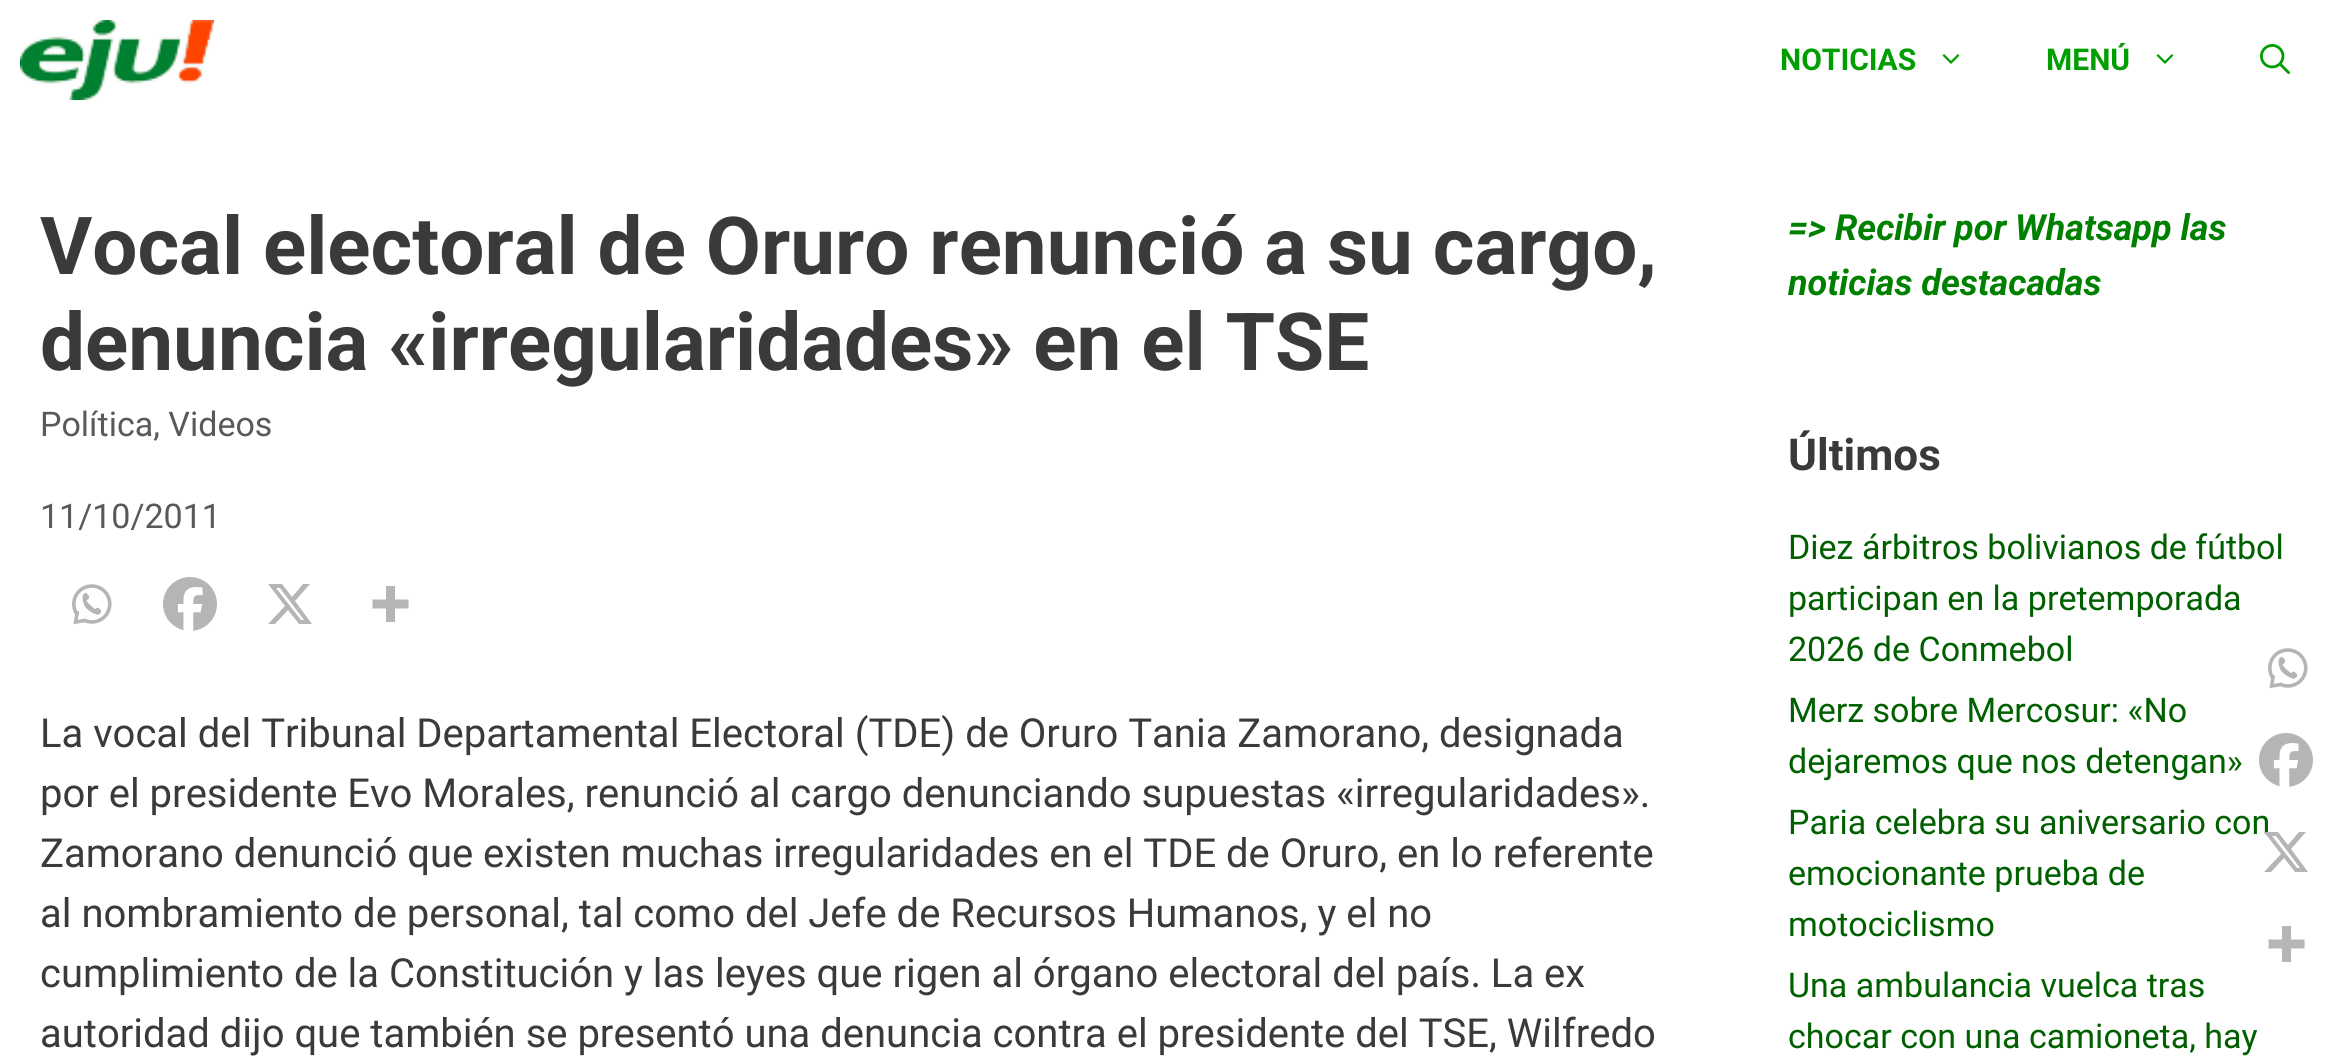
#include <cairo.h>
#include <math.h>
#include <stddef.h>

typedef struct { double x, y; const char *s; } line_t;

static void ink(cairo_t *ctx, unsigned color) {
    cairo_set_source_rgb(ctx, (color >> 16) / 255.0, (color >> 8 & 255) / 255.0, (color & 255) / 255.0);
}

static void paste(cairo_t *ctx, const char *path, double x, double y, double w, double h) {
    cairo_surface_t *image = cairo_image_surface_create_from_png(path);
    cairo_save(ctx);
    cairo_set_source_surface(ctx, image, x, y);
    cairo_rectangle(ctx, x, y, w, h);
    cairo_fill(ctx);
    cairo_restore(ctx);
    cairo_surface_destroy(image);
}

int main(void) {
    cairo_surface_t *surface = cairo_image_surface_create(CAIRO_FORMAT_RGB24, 2330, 1057);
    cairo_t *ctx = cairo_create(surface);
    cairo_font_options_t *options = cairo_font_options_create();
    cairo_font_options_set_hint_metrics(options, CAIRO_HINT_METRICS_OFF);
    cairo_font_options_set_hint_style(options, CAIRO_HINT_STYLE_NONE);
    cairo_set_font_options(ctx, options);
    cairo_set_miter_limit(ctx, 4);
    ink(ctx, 0xFFFFFF);
    cairo_paint(ctx);
    paste(ctx, "media/1.png", 20, 20, 194, 80);
    cairo_select_font_face(ctx, "Roboto", CAIRO_FONT_SLANT_NORMAL, CAIRO_FONT_WEIGHT_BOLD);
    cairo_set_font_size(ctx, 30);
    ink(ctx, 0x009E00);
    cairo_move_to(ctx, 1780, 70);
    cairo_show_text(ctx, "NOTICIAS");
    paste(ctx, "media/2.png", 1942, 54, 18, 10);
    cairo_move_to(ctx, 2046, 70);
    cairo_show_text(ctx, "MENÚ");
    paste(ctx, "media/2.png", 2156, 54, 18, 10);
    paste(ctx, "media/3.png", 2260, 44, 30, 30);
    cairo_set_font_size(ctx, 80);
    ink(ctx, 0x3A3A3A);
    cairo_move_to(ctx, 40, 274);
    cairo_show_text(ctx, "Vocal electoral de Oruro renunció a su cargo,");
    cairo_move_to(ctx, 40, 370);
    cairo_show_text(ctx, "denuncia «irregularidades» en el TSE");
    cairo_select_font_face(ctx, "Roboto", CAIRO_FONT_SLANT_NORMAL, CAIRO_FONT_WEIGHT_NORMAL);
    cairo_set_font_size(ctx, 34);
    ink(ctx, 0x595959);
    cairo_move_to(ctx, 40, 436);
    cairo_show_text(ctx, "Política, Videos");
    cairo_move_to(ctx, 40, 528);
    cairo_show_text(ctx, "11/10/2011");
    paste(ctx, "media/4.png", 72, 584, 40, 41);
    paste(ctx, "media/5.png", 163, 577, 54, 54);
    ink(ctx, 0xB5B5B5);
    cairo_new_path(ctx);
    cairo_move_to(ctx, 303, 584);
    cairo_line_to(ctx, 310, 584);
    cairo_line_to(ctx, 295, 601);
    cairo_line_to(ctx, 312, 624);
    cairo_line_to(ctx, 299, 624);
    cairo_line_to(ctx, 288, 610);
    cairo_line_to(ctx, 275, 624);
    cairo_line_to(ctx, 268, 624);
    cairo_line_to(ctx, 285, 606);
    cairo_line_to(ctx, 268, 584);
    cairo_line_to(ctx, 282, 584);
    cairo_line_to(ctx, 292, 597);
    cairo_close_path(ctx);
    cairo_move_to(ctx, 301, 620);
    cairo_line_to(ctx, 304, 620);
    cairo_line_to(ctx, 280, 588);
    cairo_line_to(ctx, 276, 588);
    cairo_close_path(ctx);
    cairo_fill(ctx);
    cairo_set_fill_rule(ctx, CAIRO_FILL_RULE_EVEN_ODD);
    cairo_new_path(ctx);
    cairo_move_to(ctx, 395, 599.5);
    cairo_line_to(ctx, 395, 586);
    cairo_line_to(ctx, 386, 586);
    cairo_line_to(ctx, 386, 599.5);
    cairo_line_to(ctx, 372.5, 599.5);
    cairo_line_to(ctx, 372.5, 608.5);
    cairo_line_to(ctx, 386, 608.5);
    cairo_line_to(ctx, 386, 622);
    cairo_line_to(ctx, 395, 622);
    cairo_line_to(ctx, 395, 608.5);
    cairo_line_to(ctx, 408.5, 608.5);
    cairo_line_to(ctx, 408.5, 599.5);
    cairo_close_path(ctx);
    cairo_fill(ctx);
    cairo_set_font_size(ctx, 40);
    ink(ctx, 0x3A3A3A);
    {
        static const line_t items[] = {
            {40, 747, "La vocal del Tribunal Departamental Electoral (TDE) de Oruro Tania Zamorano, designada"},
            {40, 807, "por el presidente Evo Morales, renunció al cargo denunciando supuestas «irregularidades»."},
            {40, 867, "Zamorano denunció que existen muchas irregularidades en el TDE de Oruro, en lo referente"},
            {40, 927, "al nombramiento de personal, tal como del Jefe de Recursos Humanos, y el no"},
            {40, 987, "cumplimiento de la Constitución y las leyes que rigen al órgano electoral del país. La ex"},
            {40, 1047, "autoridad dijo que también se presentó una denuncia contra el presidente del TSE, Wilfredo"},
        };
        for (size_t i = 0; i < sizeof items / sizeof *items; i++) {
            cairo_move_to(ctx, items[i].x, items[i].y);
            cairo_show_text(ctx, items[i].s);
        }
    }
    paste(ctx, "media/4.png", 2268, 648, 40, 41);
    paste(ctx, "media/5.png", 2259, 733, 54, 54);
    cairo_set_font_size(ctx, 34);
    ink(ctx, 0x006000);
    cairo_move_to(ctx, 1788, 834);
    cairo_show_text(ctx, "Paria celebra su aniversario con");
    ink(ctx, 0xB5B5B5);
    cairo_set_fill_rule(ctx, CAIRO_FILL_RULE_WINDING);
    cairo_new_path(ctx);
    cairo_move_to(ctx, 2299, 832);
    cairo_line_to(ctx, 2306, 832);
    cairo_line_to(ctx, 2291, 849);
    cairo_line_to(ctx, 2308, 872);
    cairo_line_to(ctx, 2295, 872);
    cairo_line_to(ctx, 2284, 858);
    cairo_line_to(ctx, 2271, 872);
    cairo_line_to(ctx, 2264, 872);
    cairo_line_to(ctx, 2281, 854);
    cairo_line_to(ctx, 2264, 832);
    cairo_line_to(ctx, 2278, 832);
    cairo_line_to(ctx, 2288, 845);
    cairo_close_path(ctx);
    cairo_move_to(ctx, 2297, 868);
    cairo_line_to(ctx, 2300, 868);
    cairo_line_to(ctx, 2276, 836);
    cairo_line_to(ctx, 2272, 836);
    cairo_close_path(ctx);
    cairo_fill(ctx);
    cairo_set_fill_rule(ctx, CAIRO_FILL_RULE_EVEN_ODD);
    cairo_new_path(ctx);
    cairo_move_to(ctx, 2291, 939.5);
    cairo_line_to(ctx, 2291, 926);
    cairo_line_to(ctx, 2282, 926);
    cairo_line_to(ctx, 2282, 939.5);
    cairo_line_to(ctx, 2268.5, 939.5);
    cairo_line_to(ctx, 2268.5, 948.5);
    cairo_line_to(ctx, 2282, 948.5);
    cairo_line_to(ctx, 2282, 962);
    cairo_line_to(ctx, 2291, 962);
    cairo_line_to(ctx, 2291, 948.5);
    cairo_line_to(ctx, 2304.5, 948.5);
    cairo_line_to(ctx, 2304.5, 939.5);
    cairo_close_path(ctx);
    cairo_fill(ctx);
    cairo_select_font_face(ctx, "Roboto", CAIRO_FONT_SLANT_ITALIC, CAIRO_FONT_WEIGHT_BOLD);
    cairo_set_font_size(ctx, 36);
    ink(ctx, 0x008000);
    cairo_move_to(ctx, 1788, 240);
    cairo_show_text(ctx, "=> Recibir por Whatsapp las");
    cairo_move_to(ctx, 1788, 295);
    cairo_show_text(ctx, "noticias destacadas");
    cairo_select_font_face(ctx, "Roboto", CAIRO_FONT_SLANT_NORMAL, CAIRO_FONT_WEIGHT_BOLD);
    cairo_set_font_size(ctx, 44);
    ink(ctx, 0x3A3A3A);
    cairo_move_to(ctx, 1788, 470);
    cairo_show_text(ctx, "Últimos");
    cairo_select_font_face(ctx, "Roboto", CAIRO_FONT_SLANT_NORMAL, CAIRO_FONT_WEIGHT_NORMAL);
    cairo_set_font_size(ctx, 34);
    ink(ctx, 0x006000);
    {
        static const line_t items[] = {
            {1788, 559, "Diez árbitros bolivianos de fútbol"},
            {1788, 610, "participan en la pretemporada"},
            {1788, 661, "2026 de Conmebol"},
            {1788, 722, "Merz sobre Mercosur: «No"},
            {1788, 773, "dejaremos que nos detengan»"},
            {1788, 885, "emocionante prueba de"},
            {1788, 936, "motociclismo"},
            {1788, 997, "Una ambulancia vuelca tras"},
            {1788, 1048, "chocar con una camioneta, hay"},
        };
        for (size_t i = 0; i < sizeof items / sizeof *items; i++) {
            cairo_move_to(ctx, items[i].x, items[i].y);
            cairo_show_text(ctx, items[i].s);
        }
    }
    cairo_surface_write_to_png(surface, "image.png");
    cairo_font_options_destroy(options);
    cairo_destroy(ctx);
    cairo_surface_destroy(surface);
    return 0;
}
